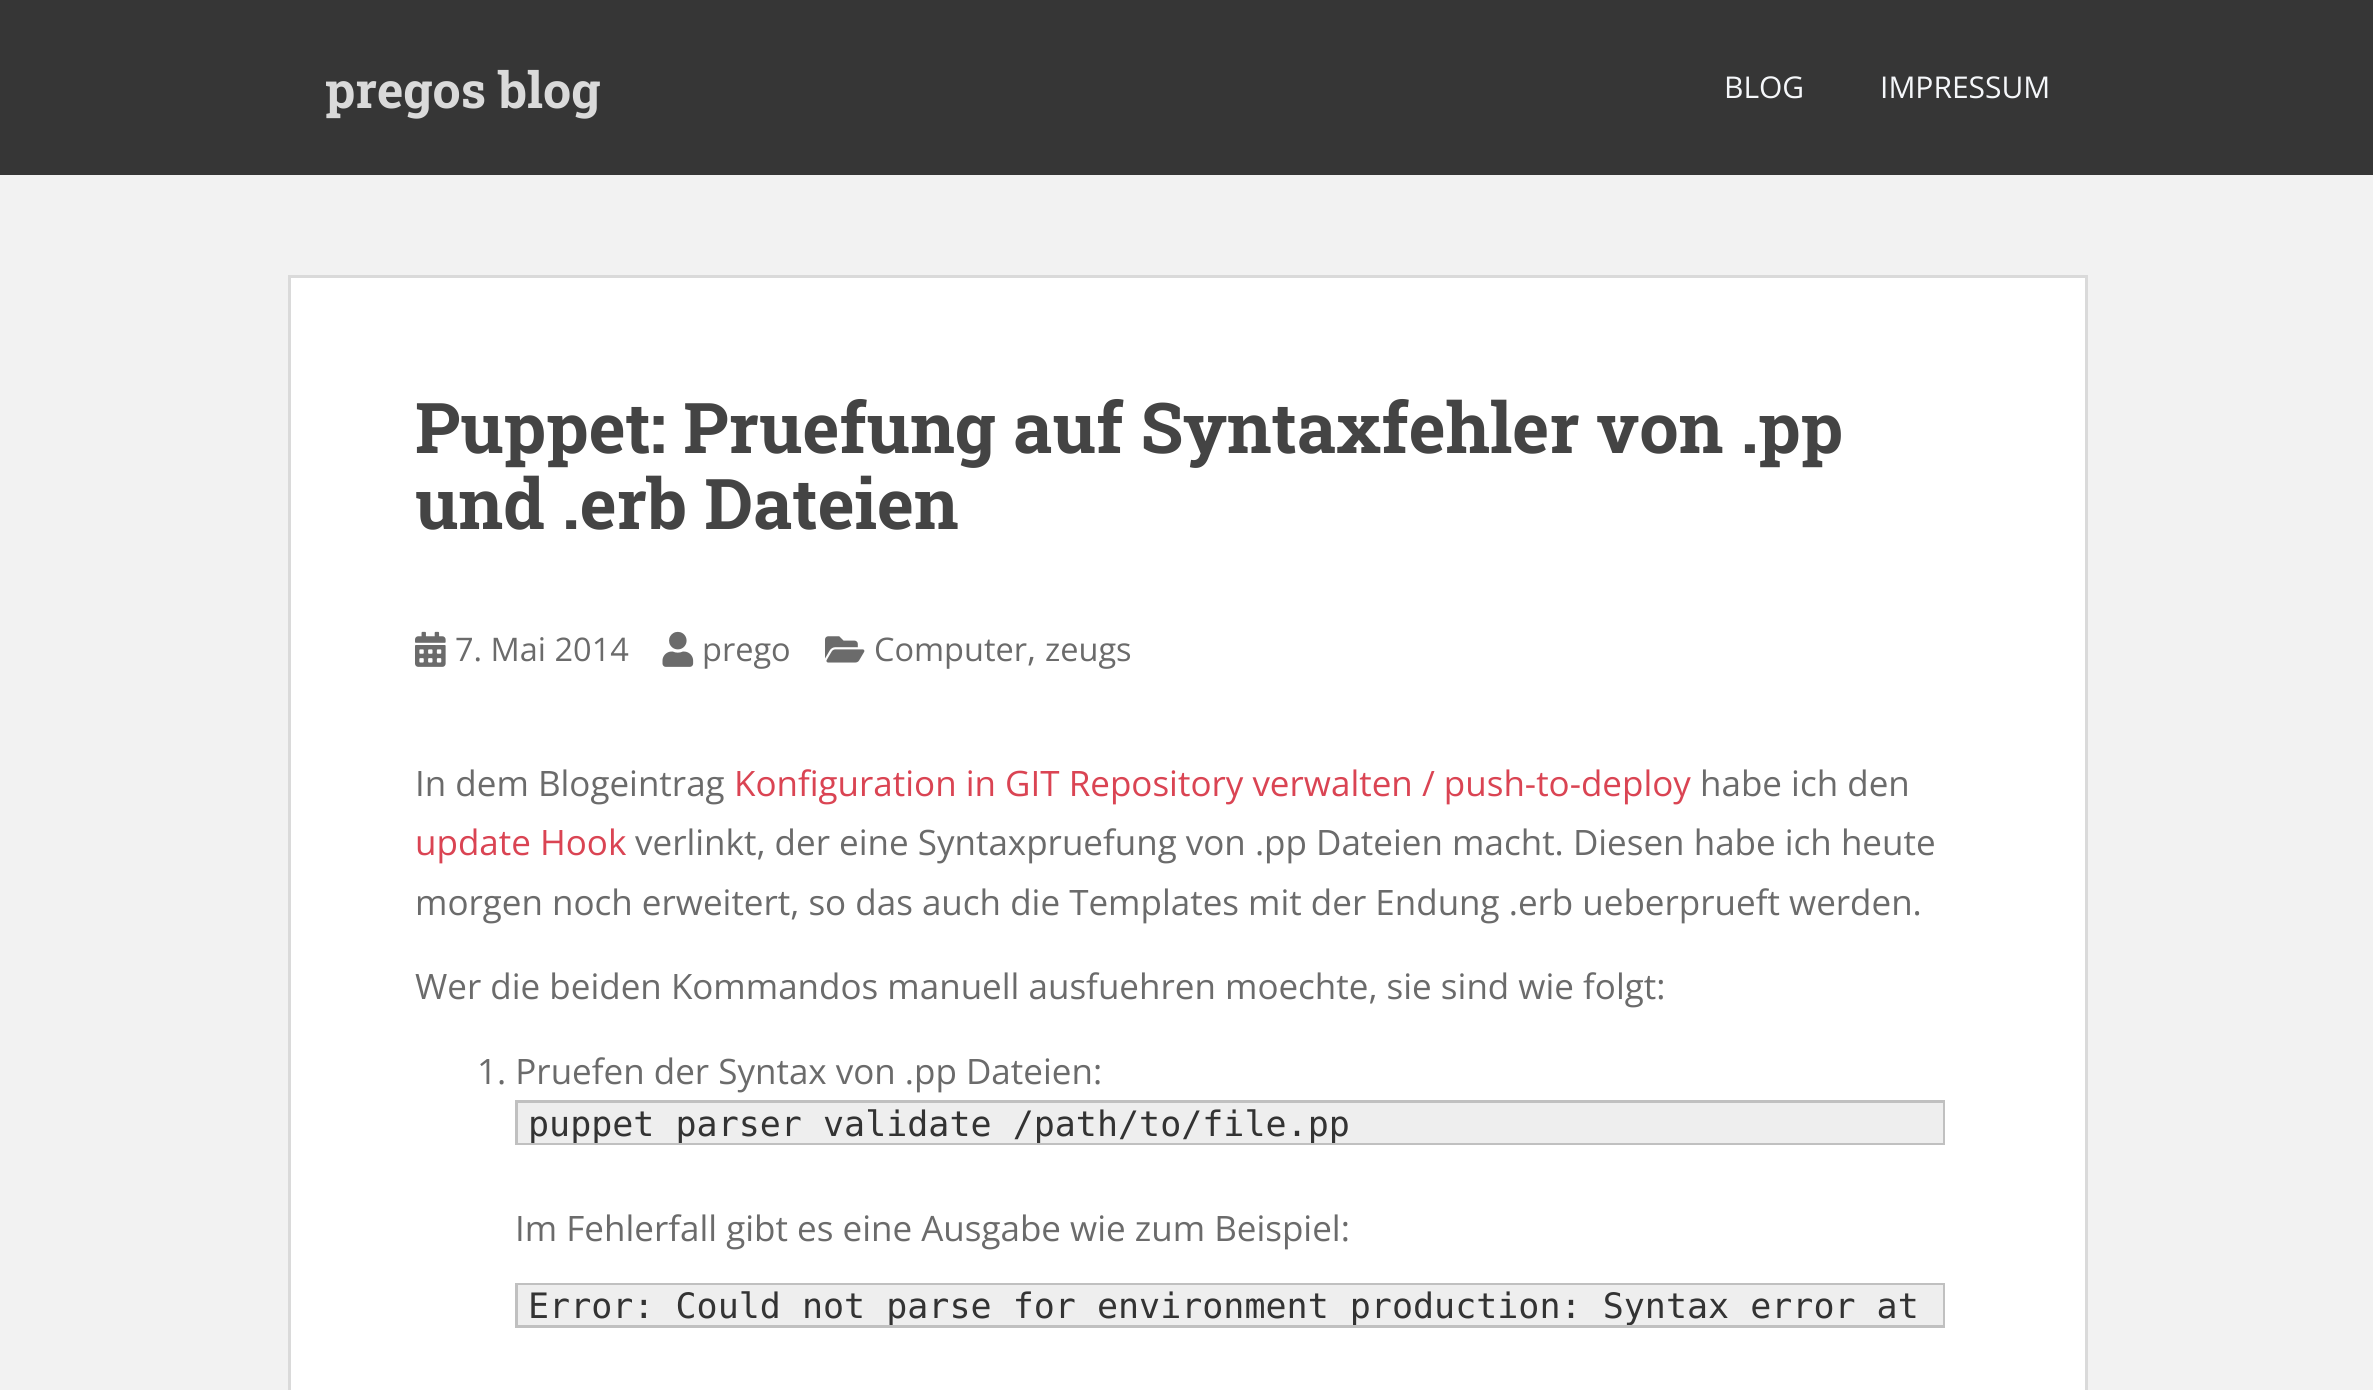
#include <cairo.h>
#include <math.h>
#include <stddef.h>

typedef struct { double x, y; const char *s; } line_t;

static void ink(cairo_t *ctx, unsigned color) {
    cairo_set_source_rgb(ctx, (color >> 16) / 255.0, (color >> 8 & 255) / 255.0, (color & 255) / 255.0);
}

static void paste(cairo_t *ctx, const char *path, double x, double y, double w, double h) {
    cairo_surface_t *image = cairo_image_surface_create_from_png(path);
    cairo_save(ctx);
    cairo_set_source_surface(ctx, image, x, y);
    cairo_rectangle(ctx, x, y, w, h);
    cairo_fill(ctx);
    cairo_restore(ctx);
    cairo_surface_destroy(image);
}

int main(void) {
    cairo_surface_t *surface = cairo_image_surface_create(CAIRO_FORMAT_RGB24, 2373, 1390);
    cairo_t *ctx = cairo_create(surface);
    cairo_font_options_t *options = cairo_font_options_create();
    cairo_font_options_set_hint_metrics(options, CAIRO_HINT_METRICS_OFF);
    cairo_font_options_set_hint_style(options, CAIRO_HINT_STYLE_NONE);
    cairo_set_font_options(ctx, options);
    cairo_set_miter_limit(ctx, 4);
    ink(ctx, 0xF2F2F2);
    cairo_paint(ctx);
    ink(ctx, 0x363636);
    cairo_rectangle(ctx, 0, 0, 2373, 175);
    cairo_fill(ctx);
    cairo_select_font_face(ctx, "Roboto Slab", CAIRO_FONT_SLANT_NORMAL, CAIRO_FONT_WEIGHT_BOLD);
    cairo_set_font_size(ctx, 50);
    ink(ctx, 0xDADADA);
    cairo_move_to(ctx, 325, 108);
    cairo_show_text(ctx, "pregos blog");
    cairo_select_font_face(ctx, "Open Sans", CAIRO_FONT_SLANT_NORMAL, CAIRO_FONT_WEIGHT_NORMAL);
    cairo_set_font_size(ctx, 30);
    ink(ctx, 0xF5F7FA);
    cairo_move_to(ctx, 1724, 98);
    cairo_show_text(ctx, "BLOG");
    cairo_move_to(ctx, 1880, 98);
    cairo_show_text(ctx, "IMPRESSUM");
    ink(ctx, 0xFFFFFF);
    cairo_rectangle(ctx, 289.5, 276.5, 1797, 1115);
    cairo_fill_preserve(ctx);
    ink(ctx, 0xDADADA);
    cairo_set_line_width(ctx, 3);
    cairo_stroke(ctx);
    cairo_select_font_face(ctx, "Roboto Slab", CAIRO_FONT_SLANT_NORMAL, CAIRO_FONT_WEIGHT_BOLD);
    cairo_set_font_size(ctx, 70);
    ink(ctx, 0x444444);
    cairo_move_to(ctx, 415, 453);
    cairo_show_text(ctx, "Puppet: Pruefung auf Syntaxfehler von .pp");
    cairo_move_to(ctx, 415, 529);
    cairo_show_text(ctx, "und .erb Dateien");
    paste(ctx, "media/1.png", 415, 631, 31, 36);
    cairo_select_font_face(ctx, "Open Sans", CAIRO_FONT_SLANT_NORMAL, CAIRO_FONT_WEIGHT_NORMAL);
    cairo_set_font_size(ctx, 32.5);
    ink(ctx, 0x6B6B6B);
    cairo_move_to(ctx, 455, 661);
    cairo_show_text(ctx, "7. Mai 2014");
    paste(ctx, "media/2.png", 662, 631, 32, 36);
    cairo_move_to(ctx, 702, 661);
    cairo_show_text(ctx, "prego");
    paste(ctx, "media/3.png", 825, 636, 40, 27);
    cairo_move_to(ctx, 874, 661);
    cairo_show_text(ctx, "Computer");
    cairo_set_font_size(ctx, 35);
    cairo_move_to(ctx, 1027, 661);
    cairo_show_text(ctx, ",");
    cairo_set_font_size(ctx, 32.5);
    cairo_move_to(ctx, 1045, 661);
    cairo_show_text(ctx, "zeugs");
    cairo_set_font_size(ctx, 35);
    cairo_move_to(ctx, 415, 796);
    cairo_show_text(ctx, "In dem Blogeintrag");
    ink(ctx, 0xDA4453);
    cairo_move_to(ctx, 734, 796);
    cairo_show_text(ctx, "Konfiguration in GIT Repository verwalten / push-to-deploy");
    ink(ctx, 0x6B6B6B);
    cairo_move_to(ctx, 1700, 796);
    cairo_show_text(ctx, "habe ich den");
    ink(ctx, 0xDA4453);
    cairo_move_to(ctx, 415, 855);
    cairo_show_text(ctx, "update Hook");
    ink(ctx, 0x6B6B6B);
    {
        static const line_t items[] = {
            {635, 855, "verlinkt, der eine Syntaxpruefung von .pp Dateien macht. Diesen habe ich heute"},
            {415, 915, "morgen noch erweitert, so das auch die Templates mit der Endung .erb ueberprueft werden."},
            {415, 999, "Wer die beiden Kommandos manuell ausfuehren moechte, sie sind wie folgt:"},
            {477, 1084, "1. Pruefen der Syntax von .pp Dateien:"},
        };
        for (size_t i = 0; i < sizeof items / sizeof *items; i++) {
            cairo_move_to(ctx, items[i].x, items[i].y);
            cairo_show_text(ctx, items[i].s);
        }
    }
    cairo_rectangle(ctx, 516.5, 1101.5, 1427, 42);
    ink(ctx, 0xC0C0C0);
    cairo_stroke(ctx);
    ink(ctx, 0xEEEEEE);
    cairo_rectangle(ctx, 518, 1103, 1425, 40);
    cairo_fill(ctx);
    cairo_save(ctx);
    cairo_rectangle(ctx, 518, 1103, 1425, 40);
    cairo_clip(ctx);
    cairo_select_font_face(ctx, "DejaVu Sans Mono", CAIRO_FONT_SLANT_NORMAL, CAIRO_FONT_WEIGHT_NORMAL);
    ink(ctx, 0x333333);
    cairo_move_to(ctx, 528, 1136);
    cairo_show_text(ctx, "puppet parser validate /path/to/file.pp");
    cairo_restore(ctx);
    ink(ctx, 0x6B6B6B);
    cairo_move_to(ctx, 515, 1241);
    cairo_show_text(ctx, "Im Fehlerfall gibt es eine Ausgabe wie zum Beispiel:");
    cairo_rectangle(ctx, 516.5, 1284.5, 1427, 42);
    ink(ctx, 0xC0C0C0);
    cairo_stroke(ctx);
    ink(ctx, 0xEEEEEE);
    cairo_rectangle(ctx, 518, 1285, 1425, 40);
    cairo_fill(ctx);
    cairo_save(ctx);
    cairo_rectangle(ctx, 518, 1285, 1425, 40);
    cairo_clip(ctx);
    cairo_select_font_face(ctx, "DejaVu Sans Mono", CAIRO_FONT_SLANT_NORMAL, CAIRO_FONT_WEIGHT_NORMAL);
    ink(ctx, 0x333333);
    cairo_move_to(ctx, 528, 1318);
    cairo_show_text(ctx, "Error: Could not parse for environment production: Syntax error at");
    cairo_restore(ctx);
    cairo_surface_write_to_png(surface, "image.png");
    cairo_font_options_destroy(options);
    cairo_destroy(ctx);
    cairo_surface_destroy(surface);
    return 0;
}
